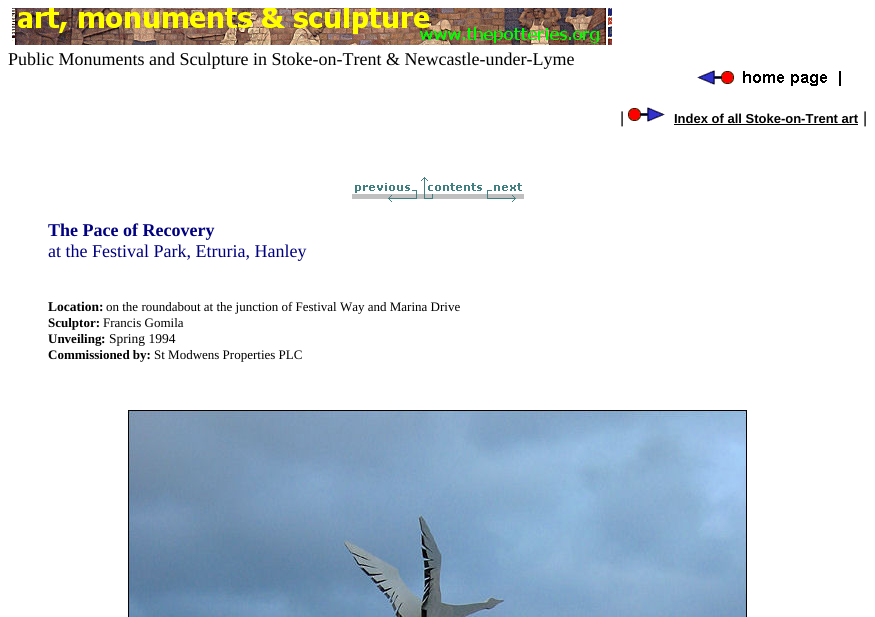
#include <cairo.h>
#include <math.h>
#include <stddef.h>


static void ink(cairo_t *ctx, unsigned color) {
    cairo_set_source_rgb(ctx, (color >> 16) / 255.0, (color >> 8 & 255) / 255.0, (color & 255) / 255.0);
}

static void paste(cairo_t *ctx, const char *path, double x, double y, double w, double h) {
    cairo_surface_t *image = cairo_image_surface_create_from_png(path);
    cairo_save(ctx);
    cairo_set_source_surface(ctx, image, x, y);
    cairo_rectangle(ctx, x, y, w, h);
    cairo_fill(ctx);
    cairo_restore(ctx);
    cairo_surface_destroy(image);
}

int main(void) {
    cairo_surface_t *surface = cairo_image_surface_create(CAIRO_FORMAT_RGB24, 875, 617);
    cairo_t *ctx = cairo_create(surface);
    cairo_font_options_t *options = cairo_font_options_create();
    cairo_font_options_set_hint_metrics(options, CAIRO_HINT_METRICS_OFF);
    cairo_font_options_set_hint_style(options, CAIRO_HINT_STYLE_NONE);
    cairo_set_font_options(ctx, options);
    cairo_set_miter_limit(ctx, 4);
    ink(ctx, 0xFFFFFF);
    cairo_paint(ctx);
    paste(ctx, "media/1.png", 12, 8, 600, 37);
    cairo_select_font_face(ctx, "Liberation Serif", CAIRO_FONT_SLANT_NORMAL, CAIRO_FONT_WEIGHT_NORMAL);
    cairo_set_font_size(ctx, 18);
    ink(ctx, 0x000000);
    cairo_move_to(ctx, 8, 65);
    cairo_show_text(ctx, "Public Monuments and Sculpture in Stoke-on-Trent & Newcastle-under-Lyme");
    paste(ctx, "media/2.png", 697, 70, 144, 16);
    cairo_select_font_face(ctx, "Liberation Sans", CAIRO_FONT_SLANT_NORMAL, CAIRO_FONT_WEIGHT_NORMAL);
    cairo_set_font_size(ctx, 16);
    cairo_move_to(ctx, 620, 123);
    cairo_show_text(ctx, "|");
    paste(ctx, "media/3.png", 628, 107, 37, 15);
    cairo_select_font_face(ctx, "Liberation Sans", CAIRO_FONT_SLANT_NORMAL, CAIRO_FONT_WEIGHT_BOLD);
    cairo_set_font_size(ctx, 13);
    cairo_move_to(ctx, 674, 123);
    cairo_show_text(ctx, "Index of all Stoke-on-Trent art");
    cairo_rectangle(ctx, 674, 124, 184, 1);
    cairo_fill(ctx);
    cairo_select_font_face(ctx, "Liberation Sans", CAIRO_FONT_SLANT_NORMAL, CAIRO_FONT_WEIGHT_NORMAL);
    cairo_set_font_size(ctx, 16);
    cairo_move_to(ctx, 863, 123);
    cairo_show_text(ctx, "|");
    paste(ctx, "media/4.png", 352, 183, 67, 19);
    paste(ctx, "media/5.png", 419, 177, 66, 22);
    paste(ctx, "media/6.png", 485, 183, 39, 19);
    cairo_select_font_face(ctx, "Liberation Serif", CAIRO_FONT_SLANT_NORMAL, CAIRO_FONT_WEIGHT_BOLD);
    cairo_set_font_size(ctx, 18);
    ink(ctx, 0x000080);
    cairo_move_to(ctx, 48, 236);
    cairo_show_text(ctx, "The Pace of Recovery");
    cairo_select_font_face(ctx, "Liberation Serif", CAIRO_FONT_SLANT_NORMAL, CAIRO_FONT_WEIGHT_NORMAL);
    cairo_move_to(ctx, 48, 257);
    cairo_show_text(ctx, "at the Festival Park, Etruria, Hanley");
    cairo_select_font_face(ctx, "Liberation Serif", CAIRO_FONT_SLANT_NORMAL, CAIRO_FONT_WEIGHT_BOLD);
    cairo_set_font_size(ctx, 13.5);
    ink(ctx, 0x000000);
    cairo_move_to(ctx, 48, 311);
    cairo_show_text(ctx, "Location:");
    cairo_select_font_face(ctx, "Liberation Serif", CAIRO_FONT_SLANT_NORMAL, CAIRO_FONT_WEIGHT_NORMAL);
    cairo_set_font_size(ctx, 13);
    cairo_move_to(ctx, 106, 311);
    cairo_show_text(ctx, "on the roundabout at the junction of Festival Way and Marina Drive");
    cairo_select_font_face(ctx, "Liberation Serif", CAIRO_FONT_SLANT_NORMAL, CAIRO_FONT_WEIGHT_BOLD);
    cairo_move_to(ctx, 48, 327);
    cairo_show_text(ctx, "Sculptor:");
    cairo_select_font_face(ctx, "Liberation Serif", CAIRO_FONT_SLANT_NORMAL, CAIRO_FONT_WEIGHT_NORMAL);
    cairo_move_to(ctx, 103, 327);
    cairo_show_text(ctx, "Francis Gomila");
    cairo_select_font_face(ctx, "Liberation Serif", CAIRO_FONT_SLANT_NORMAL, CAIRO_FONT_WEIGHT_BOLD);
    cairo_move_to(ctx, 48, 343);
    cairo_show_text(ctx, "Unveiling");
    cairo_set_font_size(ctx, 13.5);
    cairo_move_to(ctx, 101, 343);
    cairo_show_text(ctx, ":");
    cairo_select_font_face(ctx, "Liberation Serif", CAIRO_FONT_SLANT_NORMAL, CAIRO_FONT_WEIGHT_NORMAL);
    cairo_move_to(ctx, 109, 343);
    cairo_show_text(ctx, "Spring 1994");
    cairo_select_font_face(ctx, "Liberation Serif", CAIRO_FONT_SLANT_NORMAL, CAIRO_FONT_WEIGHT_BOLD);
    cairo_set_font_size(ctx, 13);
    cairo_move_to(ctx, 48, 359);
    cairo_show_text(ctx, "Commissioned by:");
    cairo_select_font_face(ctx, "Liberation Serif", CAIRO_FONT_SLANT_NORMAL, CAIRO_FONT_WEIGHT_NORMAL);
    cairo_move_to(ctx, 154, 359);
    cairo_show_text(ctx, "St Modwens Properties PLC");
    paste(ctx, "media/7.png", 128, 410, 619, 207);
    cairo_surface_write_to_png(surface, "image.png");
    cairo_font_options_destroy(options);
    cairo_destroy(ctx);
    cairo_surface_destroy(surface);
    return 0;
}
